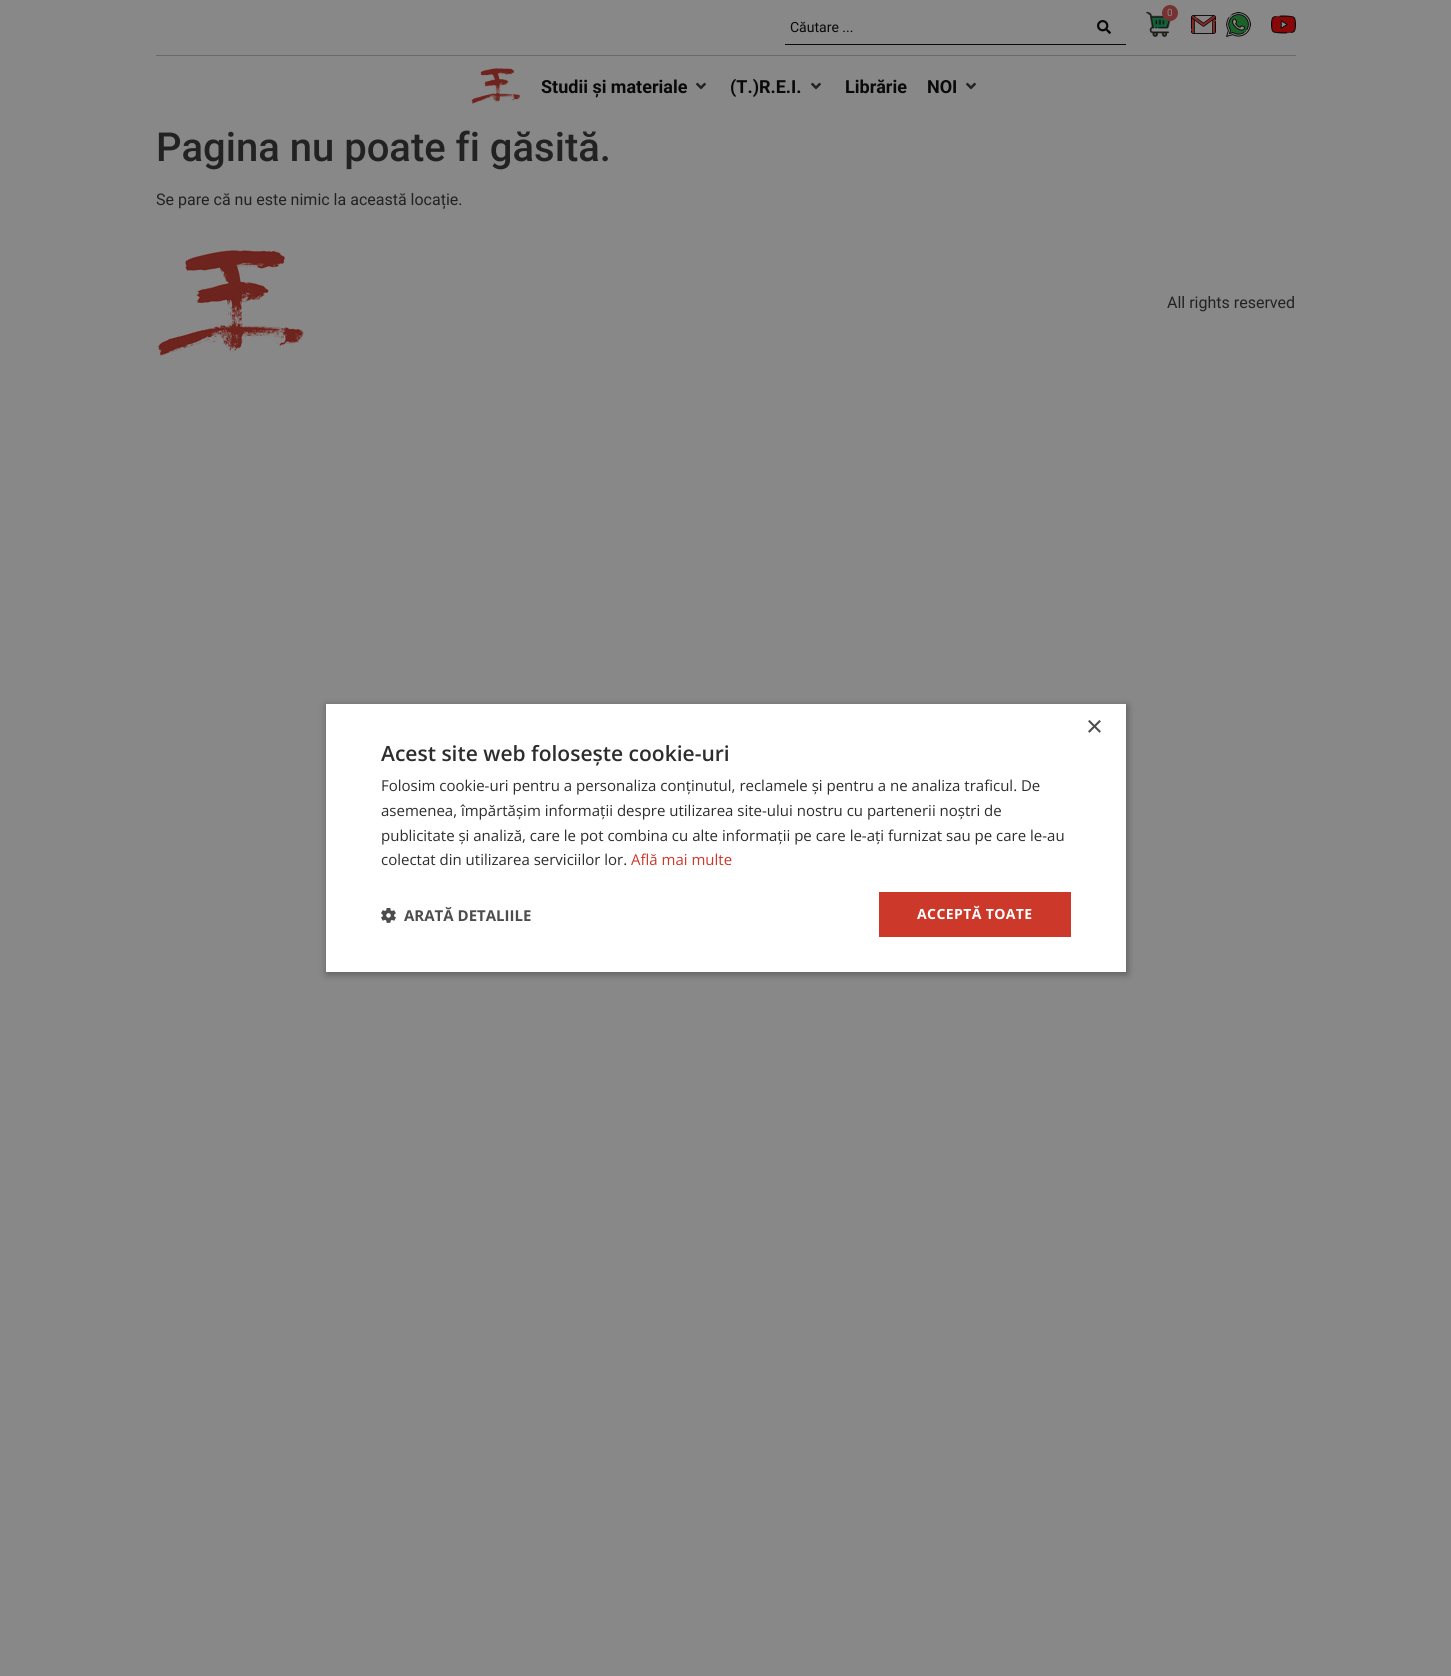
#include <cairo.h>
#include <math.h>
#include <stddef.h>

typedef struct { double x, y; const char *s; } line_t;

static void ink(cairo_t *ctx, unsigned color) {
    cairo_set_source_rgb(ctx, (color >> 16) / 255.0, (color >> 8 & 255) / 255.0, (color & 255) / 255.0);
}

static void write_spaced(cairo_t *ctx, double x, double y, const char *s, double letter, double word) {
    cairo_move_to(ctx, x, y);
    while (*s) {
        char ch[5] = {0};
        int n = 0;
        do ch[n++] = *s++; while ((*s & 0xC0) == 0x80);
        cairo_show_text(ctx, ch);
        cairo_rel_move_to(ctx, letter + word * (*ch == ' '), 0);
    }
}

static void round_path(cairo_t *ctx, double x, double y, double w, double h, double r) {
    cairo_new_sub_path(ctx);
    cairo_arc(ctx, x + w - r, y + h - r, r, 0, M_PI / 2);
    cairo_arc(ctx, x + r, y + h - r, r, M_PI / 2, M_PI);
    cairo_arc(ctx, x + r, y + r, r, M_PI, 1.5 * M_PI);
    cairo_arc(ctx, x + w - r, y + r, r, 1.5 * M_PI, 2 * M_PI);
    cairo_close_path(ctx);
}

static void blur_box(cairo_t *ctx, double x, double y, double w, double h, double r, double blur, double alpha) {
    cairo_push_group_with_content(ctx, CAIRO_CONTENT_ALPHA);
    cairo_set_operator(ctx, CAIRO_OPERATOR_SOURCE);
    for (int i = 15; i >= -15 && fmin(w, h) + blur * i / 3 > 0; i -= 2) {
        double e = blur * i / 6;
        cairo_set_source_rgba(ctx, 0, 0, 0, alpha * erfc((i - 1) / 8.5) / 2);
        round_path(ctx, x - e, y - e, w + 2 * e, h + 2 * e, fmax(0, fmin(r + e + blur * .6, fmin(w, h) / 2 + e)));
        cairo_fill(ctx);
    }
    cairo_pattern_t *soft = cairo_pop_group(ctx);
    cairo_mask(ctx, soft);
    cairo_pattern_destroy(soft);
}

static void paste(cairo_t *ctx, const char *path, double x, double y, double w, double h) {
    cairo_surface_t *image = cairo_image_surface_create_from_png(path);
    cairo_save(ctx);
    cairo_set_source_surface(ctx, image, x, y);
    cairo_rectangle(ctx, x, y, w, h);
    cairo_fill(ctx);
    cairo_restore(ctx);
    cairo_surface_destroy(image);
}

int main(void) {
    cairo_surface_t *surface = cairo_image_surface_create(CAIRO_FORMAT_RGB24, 1451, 1676);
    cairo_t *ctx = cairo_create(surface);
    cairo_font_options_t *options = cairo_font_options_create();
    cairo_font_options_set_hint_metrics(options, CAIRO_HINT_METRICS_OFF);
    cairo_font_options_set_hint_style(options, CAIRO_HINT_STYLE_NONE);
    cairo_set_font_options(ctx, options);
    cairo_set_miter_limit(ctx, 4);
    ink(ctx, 0x888888);
    cairo_paint(ctx);
    ink(ctx, 0x696969);
    cairo_rectangle(ctx, 156, 55, 1140, 1);
    cairo_fill(ctx);
    paste(ctx, "media/1.png", 1146, 12, 25, 25);
    ink(ctx, 0x753230);
    cairo_arc(ctx, 1170, 13, 8, 0, 2 * M_PI);
    cairo_fill(ctx);
    cairo_select_font_face(ctx, "Roboto", CAIRO_FONT_SLANT_NORMAL, CAIRO_FONT_WEIGHT_NORMAL);
    cairo_set_font_size(ctx, 10);
    ink(ctx, 0x888888);
    cairo_move_to(ctx, 1167, 16);
    cairo_show_text(ctx, "0");
    paste(ctx, "media/2.png", 1191, 15, 25, 19);
    paste(ctx, "media/3.png", 1226, 12, 25, 25);
    paste(ctx, "media/4.png", 1271, 15, 25, 19);
    ink(ctx, 0x090909);
    cairo_rectangle(ctx, 785, 44, 341, 1);
    cairo_fill(ctx);
    cairo_set_font_size(ctx, 14);
    cairo_move_to(ctx, 790, 32);
    cairo_show_text(ctx, "Căutare ...");
    paste(ctx, "media/5.png", 1097, 20, 14, 14);
    paste(ctx, "media/6.png", 471, 68, 50, 36);
    cairo_select_font_face(ctx, "Roboto", CAIRO_FONT_SLANT_NORMAL, CAIRO_FONT_WEIGHT_BOLD);
    cairo_set_font_size(ctx, 18);
    cairo_move_to(ctx, 541, 93);
    cairo_show_text(ctx, "Studii și materiale");
    paste(ctx, "media/7.png", 696, 82, 10, 8);
    cairo_move_to(ctx, 730, 93);
    cairo_show_text(ctx, "(T.)R.E.I.");
    paste(ctx, "media/7.png", 811, 82, 10, 8);
    cairo_move_to(ctx, 845, 93);
    cairo_show_text(ctx, "Librărie");
    cairo_move_to(ctx, 927, 93);
    cairo_show_text(ctx, "NOI");
    paste(ctx, "media/7.png", 966, 82, 10, 8);
    cairo_select_font_face(ctx, "Roboto Medium", CAIRO_FONT_SLANT_NORMAL, CAIRO_FONT_WEIGHT_NORMAL);
    cairo_set_font_size(ctx, 40);
    ink(ctx, 0x222222);
    cairo_move_to(ctx, 156, 161);
    cairo_show_text(ctx, "Pagina nu poate fi găsită.");
    cairo_select_font_face(ctx, "Roboto", CAIRO_FONT_SLANT_NORMAL, CAIRO_FONT_WEIGHT_NORMAL);
    cairo_set_font_size(ctx, 16);
    cairo_move_to(ctx, 156, 205);
    cairo_show_text(ctx, "Se pare că nu este nimic la această locație.");
    paste(ctx, "media/8.png", 157, 250, 147, 106);
    cairo_move_to(ctx, 1167, 308);
    cairo_show_text(ctx, "All rights reserved");
    ink(ctx, 0x000000);
    blur_box(ctx, 327, 706, 800, 268, 0, 4, 0.35);
    ink(ctx, 0xFFFFFF);
    cairo_rectangle(ctx, 326, 704, 800, 268);
    cairo_fill(ctx);
    cairo_select_font_face(ctx, "Liberation Sans", CAIRO_FONT_SLANT_NORMAL, CAIRO_FONT_WEIGHT_NORMAL);
    cairo_set_font_size(ctx, 29);
    ink(ctx, 0x4D4D4D);
    cairo_move_to(ctx, 1086, 736);
    cairo_show_text(ctx, "×");
    cairo_select_font_face(ctx, "Open Sans SemiBold", CAIRO_FONT_SLANT_NORMAL, CAIRO_FONT_WEIGHT_NORMAL);
    cairo_set_font_size(ctx, 21);
    ink(ctx, 0x2D2D2D);
    cairo_move_to(ctx, 381, 761);
    cairo_show_text(ctx, "Acest site web folosește cookie-uri");
    cairo_select_font_face(ctx, "Open Sans", CAIRO_FONT_SLANT_NORMAL, CAIRO_FONT_WEIGHT_NORMAL);
    cairo_set_font_size(ctx, 15);
    {
        static const line_t items[] = {
            {381, 791, "Folosim cookie-uri pentru a personaliza conținutul, reclamele și pentru a ne analiza traficul. De"},
            {381, 816, "asemenea, împărtășim informații despre utilizarea site-ului nostru cu partenerii noștri de"},
            {381, 841, "publicitate și analiză, care le pot combina cu alte informații pe care le-ați furnizat sau pe care le-au"},
            {381, 865, "colectat din utilizarea serviciilor lor."},
        };
        for (size_t i = 0; i < sizeof items / sizeof *items; i++) {
            cairo_move_to(ctx, items[i].x, items[i].y);
            cairo_show_text(ctx, items[i].s);
        }
    }
    ink(ctx, 0xCC382A);
    cairo_move_to(ctx, 631, 865);
    cairo_show_text(ctx, "Află mai multe");
    paste(ctx, "media/9.png", 381, 908, 15, 15);
    cairo_select_font_face(ctx, "Open Sans", CAIRO_FONT_SLANT_NORMAL, CAIRO_FONT_WEIGHT_BOLD);
    ink(ctx, 0x4D4D4D);
    cairo_move_to(ctx, 404, 921);
    cairo_show_text(ctx, "ARATĂ DETALIILE");
    ink(ctx, 0xCC382A);
    cairo_rectangle(ctx, 879, 892, 192, 45);
    cairo_fill(ctx);
    cairo_set_font_size(ctx, 14);
    ink(ctx, 0xFFFFFF);
    write_spaced(ctx, 917, 919, "ACCEPTĂ TOATE", 0.4, 0);
    cairo_surface_write_to_png(surface, "image.png");
    cairo_font_options_destroy(options);
    cairo_destroy(ctx);
    cairo_surface_destroy(surface);
    return 0;
}
